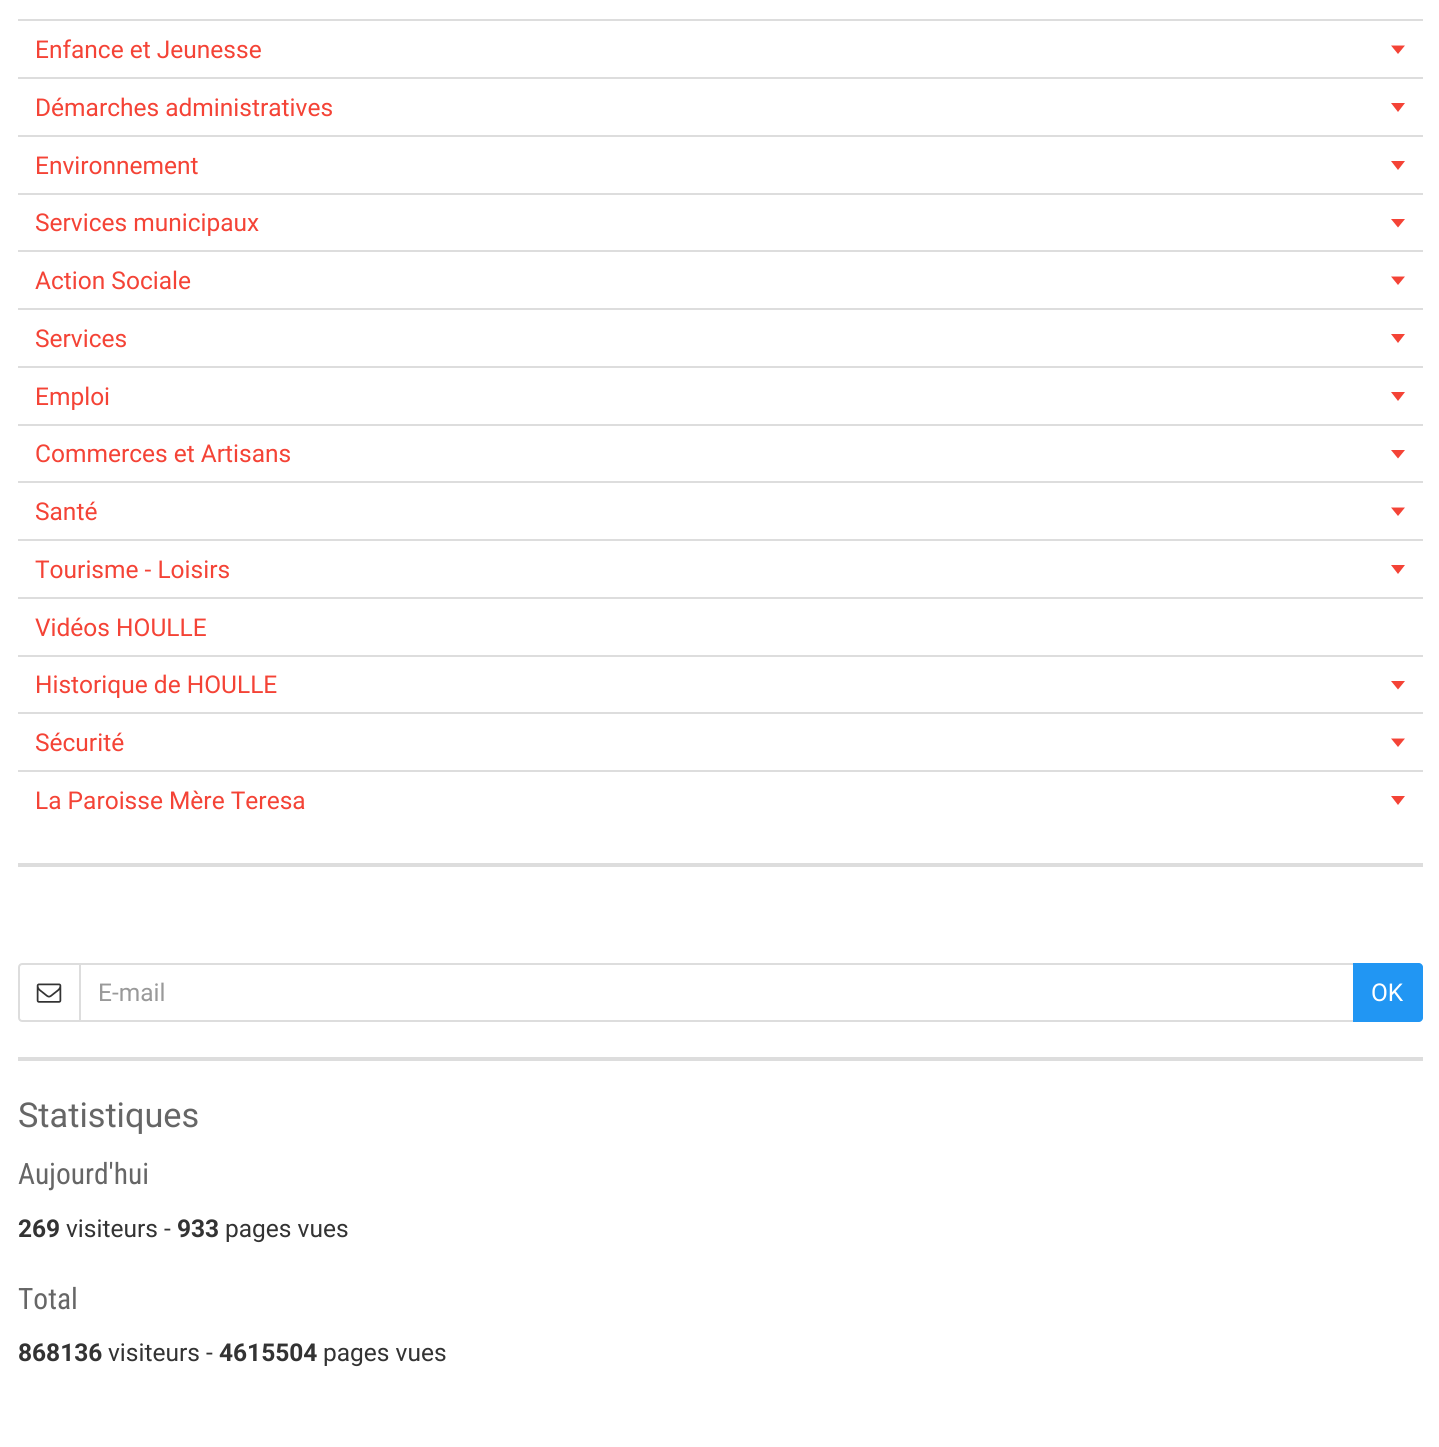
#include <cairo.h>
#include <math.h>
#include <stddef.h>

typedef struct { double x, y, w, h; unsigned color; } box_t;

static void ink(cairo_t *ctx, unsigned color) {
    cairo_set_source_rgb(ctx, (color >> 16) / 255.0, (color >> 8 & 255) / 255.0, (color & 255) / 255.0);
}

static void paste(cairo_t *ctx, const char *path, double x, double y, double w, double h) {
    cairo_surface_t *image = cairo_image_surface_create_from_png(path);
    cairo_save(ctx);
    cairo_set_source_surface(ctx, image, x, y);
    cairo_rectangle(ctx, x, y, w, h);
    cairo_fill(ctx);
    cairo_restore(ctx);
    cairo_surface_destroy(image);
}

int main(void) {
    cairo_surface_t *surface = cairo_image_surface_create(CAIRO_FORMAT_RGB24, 1439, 1447);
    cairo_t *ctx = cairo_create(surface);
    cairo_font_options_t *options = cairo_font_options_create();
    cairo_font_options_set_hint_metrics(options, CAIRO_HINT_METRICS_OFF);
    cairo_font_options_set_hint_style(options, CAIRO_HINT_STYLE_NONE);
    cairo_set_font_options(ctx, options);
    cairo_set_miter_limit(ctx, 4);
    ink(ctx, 0xFFFFFF);
    cairo_paint(ctx);
    {
        static const box_t items[] = {
            {18, 863, 1405, 4, 0xDDDDDD},
            {18, 19, 1405, 2, 0xDDDDDD},
            {18, 77, 1405, 2, 0xDDDDDD},
        };
        for (size_t i = 0; i < sizeof items / sizeof *items; i++) {
            ink(ctx, items[i].color);
            cairo_rectangle(ctx, items[i].x, items[i].y, items[i].w, items[i].h);
            cairo_fill(ctx);
        }
    }
    cairo_select_font_face(ctx, "Roboto", CAIRO_FONT_SLANT_NORMAL, CAIRO_FONT_WEIGHT_NORMAL);
    cairo_set_font_size(ctx, 24.5);
    ink(ctx, 0xF44336);
    cairo_move_to(ctx, 35, 58);
    cairo_show_text(ctx, "Enfance et Jeunesse");
    cairo_new_path(ctx);
    cairo_move_to(ctx, 1391, 45.5);
    cairo_line_to(ctx, 1405, 45.5);
    cairo_line_to(ctx, 1398, 54);
    cairo_close_path(ctx);
    cairo_fill(ctx);
    ink(ctx, 0xDDDDDD);
    cairo_rectangle(ctx, 18, 135, 1405, 2);
    cairo_fill(ctx);
    ink(ctx, 0xF44336);
    cairo_move_to(ctx, 35, 116);
    cairo_show_text(ctx, "Démarches administratives");
    cairo_new_path(ctx);
    cairo_move_to(ctx, 1391, 103);
    cairo_line_to(ctx, 1405, 103);
    cairo_line_to(ctx, 1398, 112);
    cairo_close_path(ctx);
    cairo_fill(ctx);
    ink(ctx, 0xDDDDDD);
    cairo_rectangle(ctx, 18, 193, 1405, 2);
    cairo_fill(ctx);
    ink(ctx, 0xF44336);
    cairo_move_to(ctx, 35, 174);
    cairo_show_text(ctx, "Environnement");
    cairo_new_path(ctx);
    cairo_move_to(ctx, 1391, 161);
    cairo_line_to(ctx, 1405, 161);
    cairo_line_to(ctx, 1398, 170);
    cairo_close_path(ctx);
    cairo_fill(ctx);
    ink(ctx, 0xDDDDDD);
    cairo_rectangle(ctx, 18, 250, 1405, 2);
    cairo_fill(ctx);
    ink(ctx, 0xF44336);
    cairo_move_to(ctx, 35, 231);
    cairo_show_text(ctx, "Services municipaux");
    cairo_new_path(ctx);
    cairo_move_to(ctx, 1391, 219);
    cairo_line_to(ctx, 1405, 219);
    cairo_line_to(ctx, 1398, 227.5);
    cairo_close_path(ctx);
    cairo_fill(ctx);
    ink(ctx, 0xDDDDDD);
    cairo_rectangle(ctx, 18, 308, 1405, 2);
    cairo_fill(ctx);
    ink(ctx, 0xF44336);
    cairo_move_to(ctx, 35, 289);
    cairo_show_text(ctx, "Action Sociale");
    cairo_new_path(ctx);
    cairo_move_to(ctx, 1391, 276.5);
    cairo_line_to(ctx, 1405, 276.5);
    cairo_line_to(ctx, 1398, 285);
    cairo_close_path(ctx);
    cairo_fill(ctx);
    ink(ctx, 0xDDDDDD);
    cairo_rectangle(ctx, 18, 366, 1405, 2);
    cairo_fill(ctx);
    ink(ctx, 0xF44336);
    cairo_move_to(ctx, 35, 347);
    cairo_show_text(ctx, "Services");
    cairo_new_path(ctx);
    cairo_move_to(ctx, 1391, 334);
    cairo_line_to(ctx, 1405, 334);
    cairo_line_to(ctx, 1398, 343);
    cairo_close_path(ctx);
    cairo_fill(ctx);
    ink(ctx, 0xDDDDDD);
    cairo_rectangle(ctx, 18, 424, 1405, 2);
    cairo_fill(ctx);
    ink(ctx, 0xF44336);
    cairo_move_to(ctx, 35, 405);
    cairo_show_text(ctx, "Emploi");
    cairo_new_path(ctx);
    cairo_move_to(ctx, 1391, 392);
    cairo_line_to(ctx, 1405, 392);
    cairo_line_to(ctx, 1398, 401);
    cairo_close_path(ctx);
    cairo_fill(ctx);
    ink(ctx, 0xDDDDDD);
    cairo_rectangle(ctx, 18, 481, 1405, 2);
    cairo_fill(ctx);
    ink(ctx, 0xF44336);
    cairo_move_to(ctx, 35, 462);
    cairo_show_text(ctx, "Commerces et Artisans");
    cairo_new_path(ctx);
    cairo_move_to(ctx, 1391, 450);
    cairo_line_to(ctx, 1405, 450);
    cairo_line_to(ctx, 1398, 458.5);
    cairo_close_path(ctx);
    cairo_fill(ctx);
    ink(ctx, 0xDDDDDD);
    cairo_rectangle(ctx, 18, 539, 1405, 2);
    cairo_fill(ctx);
    ink(ctx, 0xF44336);
    cairo_move_to(ctx, 35, 520);
    cairo_show_text(ctx, "Santé");
    cairo_new_path(ctx);
    cairo_move_to(ctx, 1391, 507.5);
    cairo_line_to(ctx, 1405, 507.5);
    cairo_line_to(ctx, 1398, 516);
    cairo_close_path(ctx);
    cairo_fill(ctx);
    ink(ctx, 0xDDDDDD);
    cairo_rectangle(ctx, 18, 597, 1405, 2);
    cairo_fill(ctx);
    ink(ctx, 0xF44336);
    cairo_move_to(ctx, 35, 578);
    cairo_show_text(ctx, "Tourisme - Loisirs");
    cairo_new_path(ctx);
    cairo_move_to(ctx, 1391, 565);
    cairo_line_to(ctx, 1405, 565);
    cairo_line_to(ctx, 1398, 574);
    cairo_close_path(ctx);
    cairo_fill(ctx);
    ink(ctx, 0xDDDDDD);
    cairo_rectangle(ctx, 18, 655, 1405, 2);
    cairo_fill(ctx);
    ink(ctx, 0xF44336);
    cairo_move_to(ctx, 35, 636);
    cairo_show_text(ctx, "Vidéos HOULLE");
    ink(ctx, 0xDDDDDD);
    cairo_rectangle(ctx, 18, 712, 1405, 2);
    cairo_fill(ctx);
    ink(ctx, 0xF44336);
    cairo_move_to(ctx, 35, 693);
    cairo_show_text(ctx, "Historique de HOULLE");
    cairo_new_path(ctx);
    cairo_move_to(ctx, 1391, 681);
    cairo_line_to(ctx, 1405, 681);
    cairo_line_to(ctx, 1398, 689.5);
    cairo_close_path(ctx);
    cairo_fill(ctx);
    ink(ctx, 0xDDDDDD);
    cairo_rectangle(ctx, 18, 770, 1405, 2);
    cairo_fill(ctx);
    ink(ctx, 0xF44336);
    cairo_move_to(ctx, 35, 751);
    cairo_show_text(ctx, "Sécurité");
    cairo_new_path(ctx);
    cairo_move_to(ctx, 1391, 738.5);
    cairo_line_to(ctx, 1405, 738.5);
    cairo_line_to(ctx, 1398, 747);
    cairo_close_path(ctx);
    cairo_fill(ctx);
    cairo_move_to(ctx, 35, 809);
    cairo_show_text(ctx, "La Paroisse Mère Teresa");
    cairo_new_path(ctx);
    cairo_move_to(ctx, 1391, 796);
    cairo_line_to(ctx, 1405, 796);
    cairo_line_to(ctx, 1398, 805);
    cairo_close_path(ctx);
    cairo_fill(ctx);
    ink(ctx, 0xDDDDDD);
    cairo_rectangle(ctx, 18, 1057, 1405, 4);
    cairo_fill(ctx);
    cairo_new_path(ctx);
    cairo_move_to(ctx, 22, 964);
    cairo_line_to(ctx, 80, 964);
    cairo_line_to(ctx, 80, 1021);
    cairo_line_to(ctx, 22, 1021);
    cairo_curve_to(ctx, 20.5, 1021, 19, 1019.5, 19, 1018);
    cairo_line_to(ctx, 19, 967);
    cairo_curve_to(ctx, 19, 965.5, 20.5, 964, 22, 964);
    cairo_close_path(ctx);
    cairo_stroke(ctx);
    paste(ctx, "media/1.png", 36, 983, 26, 20);
    cairo_rectangle(ctx, 80, 964, 1274, 57);
    cairo_stroke(ctx);
    ink(ctx, 0x999999);
    cairo_move_to(ctx, 98, 1001);
    cairo_show_text(ctx, "E-mail");
    ink(ctx, 0x2196F3);
    cairo_new_path(ctx);
    cairo_move_to(ctx, 1353, 963);
    cairo_line_to(ctx, 1419, 963);
    cairo_curve_to(ctx, 1421, 963, 1423, 965, 1423, 967);
    cairo_line_to(ctx, 1423, 1018);
    cairo_curve_to(ctx, 1423, 1020, 1421, 1022, 1419, 1022);
    cairo_line_to(ctx, 1353, 1022);
    cairo_close_path(ctx);
    cairo_fill(ctx);
    ink(ctx, 0xFFFFFF);
    cairo_move_to(ctx, 1371, 1001);
    cairo_show_text(ctx, "OK");
    cairo_set_font_size(ctx, 34.25);
    ink(ctx, 0x666666);
    cairo_move_to(ctx, 18, 1127);
    cairo_show_text(ctx, "Statistiques");
    cairo_select_font_face(ctx, "Roboto Condensed", CAIRO_FONT_SLANT_NORMAL, CAIRO_FONT_WEIGHT_NORMAL);
    cairo_set_font_size(ctx, 29.5);
    cairo_move_to(ctx, 18, 1184);
    cairo_show_text(ctx, "Aujourd'hui");
    cairo_select_font_face(ctx, "Roboto", CAIRO_FONT_SLANT_NORMAL, CAIRO_FONT_WEIGHT_BOLD);
    cairo_set_font_size(ctx, 24.5);
    ink(ctx, 0x333333);
    cairo_move_to(ctx, 18, 1237);
    cairo_show_text(ctx, "269");
    cairo_select_font_face(ctx, "Roboto", CAIRO_FONT_SLANT_NORMAL, CAIRO_FONT_WEIGHT_NORMAL);
    cairo_move_to(ctx, 66, 1237);
    cairo_show_text(ctx, "visiteurs -");
    cairo_select_font_face(ctx, "Roboto", CAIRO_FONT_SLANT_NORMAL, CAIRO_FONT_WEIGHT_BOLD);
    cairo_move_to(ctx, 177, 1237);
    cairo_show_text(ctx, "933");
    cairo_select_font_face(ctx, "Roboto", CAIRO_FONT_SLANT_NORMAL, CAIRO_FONT_WEIGHT_NORMAL);
    cairo_move_to(ctx, 225, 1237);
    cairo_show_text(ctx, "pages vues");
    cairo_select_font_face(ctx, "Roboto Condensed", CAIRO_FONT_SLANT_NORMAL, CAIRO_FONT_WEIGHT_NORMAL);
    cairo_set_font_size(ctx, 29.5);
    ink(ctx, 0x666666);
    cairo_move_to(ctx, 18, 1309);
    cairo_show_text(ctx, "Total");
    cairo_select_font_face(ctx, "Roboto", CAIRO_FONT_SLANT_NORMAL, CAIRO_FONT_WEIGHT_BOLD);
    cairo_set_font_size(ctx, 24.5);
    ink(ctx, 0x333333);
    cairo_move_to(ctx, 18, 1361);
    cairo_show_text(ctx, "868136");
    cairo_select_font_face(ctx, "Roboto", CAIRO_FONT_SLANT_NORMAL, CAIRO_FONT_WEIGHT_NORMAL);
    cairo_move_to(ctx, 108, 1361);
    cairo_show_text(ctx, "visiteurs -");
    cairo_select_font_face(ctx, "Roboto", CAIRO_FONT_SLANT_NORMAL, CAIRO_FONT_WEIGHT_BOLD);
    cairo_move_to(ctx, 219, 1361);
    cairo_show_text(ctx, "4615504");
    cairo_select_font_face(ctx, "Roboto", CAIRO_FONT_SLANT_NORMAL, CAIRO_FONT_WEIGHT_NORMAL);
    cairo_move_to(ctx, 323, 1361);
    cairo_show_text(ctx, "pages vues");
    cairo_surface_write_to_png(surface, "image.png");
    cairo_font_options_destroy(options);
    cairo_destroy(ctx);
    cairo_surface_destroy(surface);
    return 0;
}
